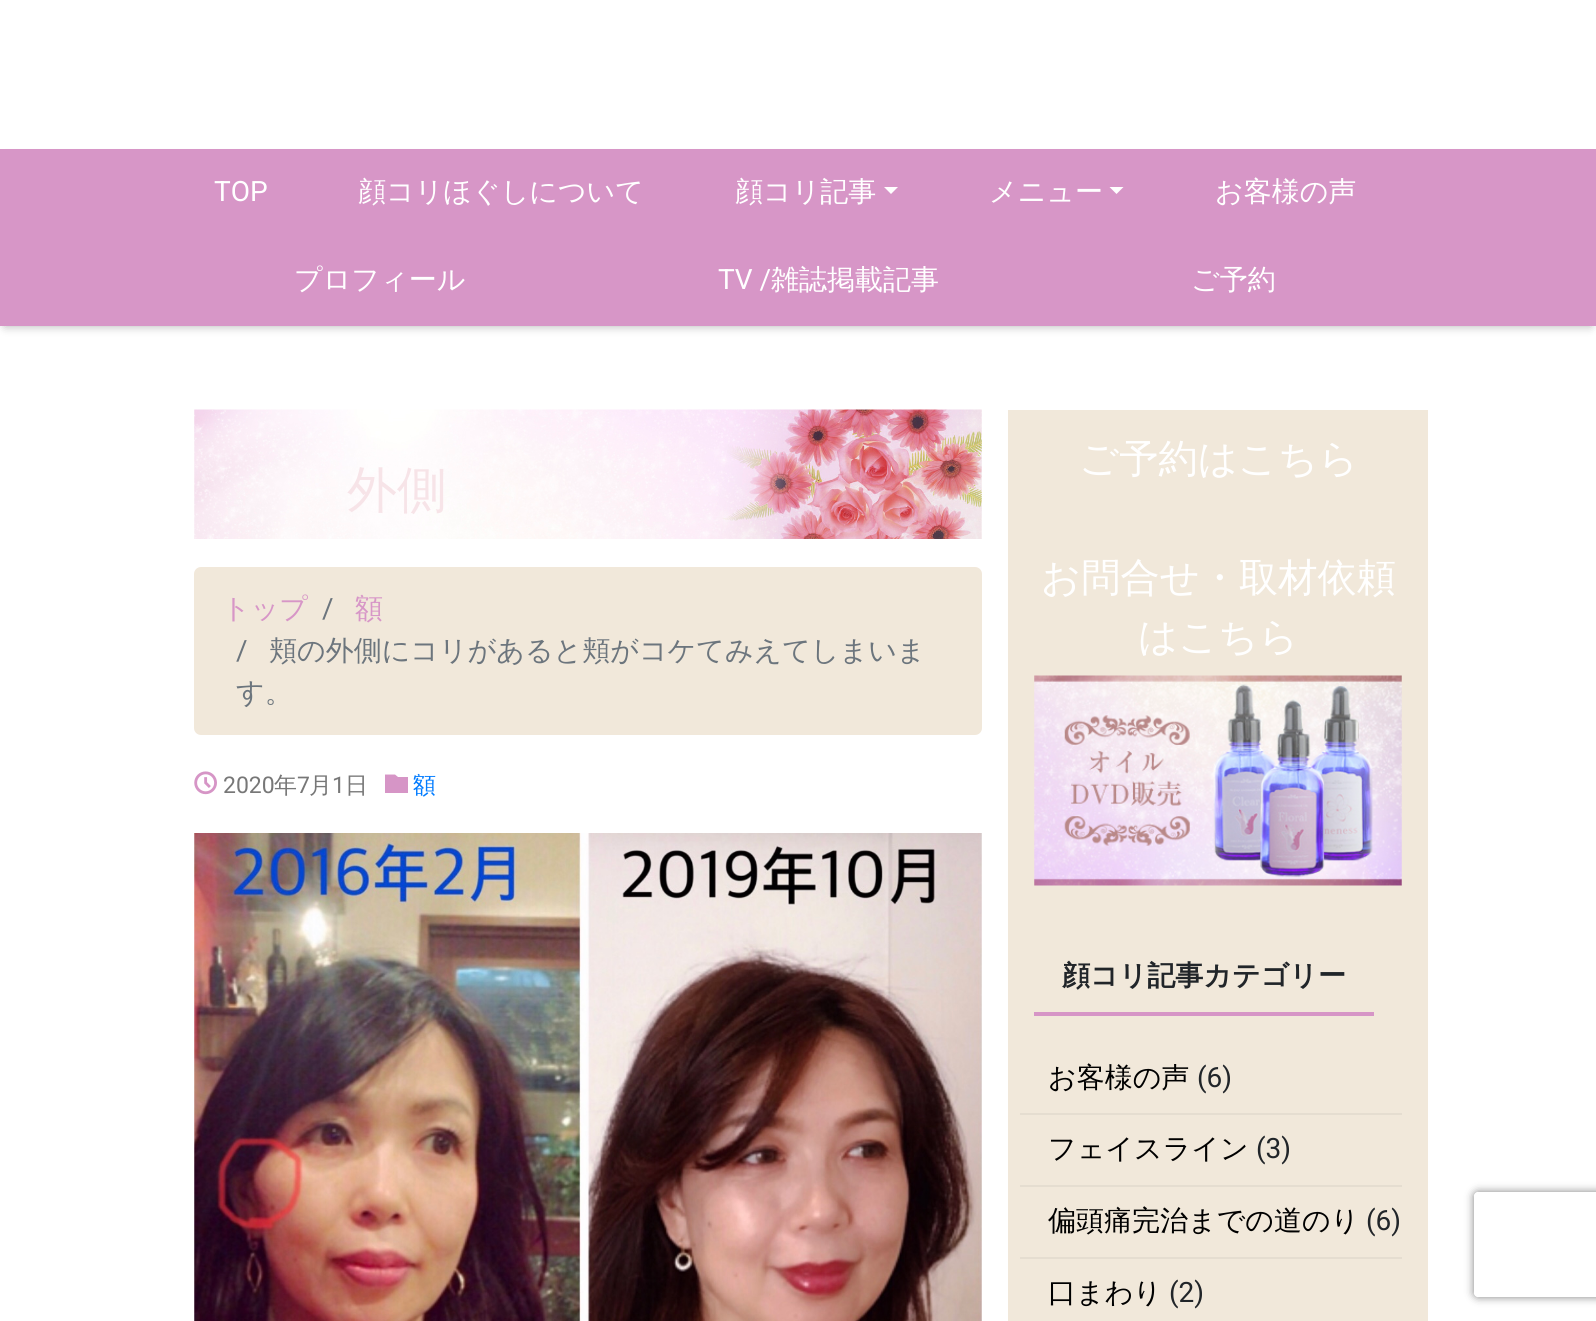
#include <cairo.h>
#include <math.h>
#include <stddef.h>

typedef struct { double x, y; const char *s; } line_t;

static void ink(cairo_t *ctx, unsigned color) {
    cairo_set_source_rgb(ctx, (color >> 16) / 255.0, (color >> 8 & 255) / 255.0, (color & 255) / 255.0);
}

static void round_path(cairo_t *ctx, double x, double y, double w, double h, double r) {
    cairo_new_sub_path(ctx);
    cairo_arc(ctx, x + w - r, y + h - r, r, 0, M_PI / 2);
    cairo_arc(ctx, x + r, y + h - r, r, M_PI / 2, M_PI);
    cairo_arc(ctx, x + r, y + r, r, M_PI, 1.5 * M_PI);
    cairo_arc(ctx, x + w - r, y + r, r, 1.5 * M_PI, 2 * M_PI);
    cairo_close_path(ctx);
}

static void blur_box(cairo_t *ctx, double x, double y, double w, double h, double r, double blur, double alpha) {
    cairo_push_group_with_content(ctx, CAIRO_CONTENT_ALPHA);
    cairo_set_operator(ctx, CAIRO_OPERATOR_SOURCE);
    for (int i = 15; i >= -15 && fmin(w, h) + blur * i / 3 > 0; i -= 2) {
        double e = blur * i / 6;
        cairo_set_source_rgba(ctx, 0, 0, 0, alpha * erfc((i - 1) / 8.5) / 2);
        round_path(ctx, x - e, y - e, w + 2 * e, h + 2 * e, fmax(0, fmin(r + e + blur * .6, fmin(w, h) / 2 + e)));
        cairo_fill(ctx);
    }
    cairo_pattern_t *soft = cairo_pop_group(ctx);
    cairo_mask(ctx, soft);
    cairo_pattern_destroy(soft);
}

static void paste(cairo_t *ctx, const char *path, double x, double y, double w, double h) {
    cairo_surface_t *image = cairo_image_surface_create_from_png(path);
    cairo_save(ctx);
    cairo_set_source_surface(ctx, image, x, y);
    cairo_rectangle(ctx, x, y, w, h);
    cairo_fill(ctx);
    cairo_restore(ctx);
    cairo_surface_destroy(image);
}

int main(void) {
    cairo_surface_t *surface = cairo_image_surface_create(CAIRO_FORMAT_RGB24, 1596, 1321);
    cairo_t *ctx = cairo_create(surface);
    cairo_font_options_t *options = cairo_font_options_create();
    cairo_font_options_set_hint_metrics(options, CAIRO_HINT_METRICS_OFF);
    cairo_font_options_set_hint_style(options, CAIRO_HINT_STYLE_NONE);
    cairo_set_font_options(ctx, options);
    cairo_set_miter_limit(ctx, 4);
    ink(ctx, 0xFFFFFF);
    cairo_paint(ctx);
    ink(ctx, 0x000000);
    blur_box(ctx, 5, 159, 1586, 167, 0, 5, 0.3);
    ink(ctx, 0xD796C7);
    cairo_rectangle(ctx, 0, 149, 1596, 177);
    cairo_fill(ctx);
    cairo_select_font_face(ctx, "Roboto", CAIRO_FONT_SLANT_NORMAL, CAIRO_FONT_WEIGHT_NORMAL);
    cairo_set_font_size(ctx, 28);
    ink(ctx, 0xFFFFFF);
    cairo_move_to(ctx, 214, 201);
    cairo_show_text(ctx, "TOP");
    cairo_select_font_face(ctx, "WenQuanYi Zen Hei Medium", CAIRO_FONT_SLANT_NORMAL, CAIRO_FONT_WEIGHT_NORMAL);
    cairo_move_to(ctx, 358, 201);
    cairo_show_text(ctx, "顔コリほぐしについて");
    cairo_move_to(ctx, 735, 201);
    cairo_show_text(ctx, "顔コリ記事");
    cairo_new_path(ctx);
    cairo_move_to(ctx, 884, 187);
    cairo_line_to(ctx, 898, 187);
    cairo_line_to(ctx, 891, 194);
    cairo_close_path(ctx);
    cairo_fill(ctx);
    cairo_move_to(ctx, 989, 201);
    cairo_show_text(ctx, "メニュー");
    cairo_new_path(ctx);
    cairo_move_to(ctx, 1109.5, 187);
    cairo_line_to(ctx, 1123.5, 187);
    cairo_line_to(ctx, 1116.5, 194);
    cairo_close_path(ctx);
    cairo_fill(ctx);
    cairo_move_to(ctx, 1215, 201);
    cairo_show_text(ctx, "お客様の声");
    cairo_move_to(ctx, 294, 289);
    cairo_show_text(ctx, "プロフィール");
    cairo_select_font_face(ctx, "Roboto", CAIRO_FONT_SLANT_NORMAL, CAIRO_FONT_WEIGHT_NORMAL);
    cairo_move_to(ctx, 718, 289);
    cairo_show_text(ctx, "TV /");
    cairo_select_font_face(ctx, "WenQuanYi Zen Hei Medium", CAIRO_FONT_SLANT_NORMAL, CAIRO_FONT_WEIGHT_NORMAL);
    cairo_move_to(ctx, 771, 289);
    cairo_show_text(ctx, "雑誌掲載記事");
    cairo_move_to(ctx, 1191, 289);
    cairo_show_text(ctx, "ご予約");
    paste(ctx, "media/1.png", 194, 409, 788, 130);
    cairo_set_font_size(ctx, 50);
    ink(ctx, 0xF7E4E8);
    cairo_move_to(ctx, 347, 507);
    cairo_show_text(ctx, "外側");
    ink(ctx, 0xF1E8DA);
    round_path(ctx, 194, 567, 788, 168, 7);
    cairo_fill(ctx);
    cairo_set_font_size(ctx, 28);
    ink(ctx, 0xD796C7);
    cairo_move_to(ctx, 222, 618);
    cairo_show_text(ctx, "トップ");
    cairo_select_font_face(ctx, "Roboto", CAIRO_FONT_SLANT_NORMAL, CAIRO_FONT_WEIGHT_NORMAL);
    ink(ctx, 0x6C757D);
    cairo_move_to(ctx, 322, 618);
    cairo_show_text(ctx, "/");
    cairo_select_font_face(ctx, "WenQuanYi Zen Hei Medium", CAIRO_FONT_SLANT_NORMAL, CAIRO_FONT_WEIGHT_NORMAL);
    ink(ctx, 0xD796C7);
    cairo_move_to(ctx, 355, 618);
    cairo_show_text(ctx, "額");
    cairo_select_font_face(ctx, "Roboto", CAIRO_FONT_SLANT_NORMAL, CAIRO_FONT_WEIGHT_NORMAL);
    ink(ctx, 0x6C757D);
    cairo_move_to(ctx, 236, 660);
    cairo_show_text(ctx, "/");
    cairo_select_font_face(ctx, "WenQuanYi Zen Hei Medium", CAIRO_FONT_SLANT_NORMAL, CAIRO_FONT_WEIGHT_NORMAL);
    cairo_move_to(ctx, 269, 660);
    cairo_show_text(ctx, "頬の外側にコリがあると頬がコケてみえてしまいま");
    cairo_move_to(ctx, 236, 702);
    cairo_show_text(ctx, "す。");
    paste(ctx, "media/2.png", 194, 771, 23, 24);
    cairo_select_font_face(ctx, "Roboto", CAIRO_FONT_SLANT_NORMAL, CAIRO_FONT_WEIGHT_NORMAL);
    cairo_set_font_size(ctx, 23);
    ink(ctx, 0x777777);
    cairo_move_to(ctx, 223, 793);
    cairo_show_text(ctx, "2020");
    cairo_select_font_face(ctx, "WenQuanYi Zen Hei Medium", CAIRO_FONT_SLANT_NORMAL, CAIRO_FONT_WEIGHT_NORMAL);
    cairo_move_to(ctx, 274, 793);
    cairo_show_text(ctx, "年");
    cairo_select_font_face(ctx, "Roboto", CAIRO_FONT_SLANT_NORMAL, CAIRO_FONT_WEIGHT_NORMAL);
    cairo_move_to(ctx, 297, 793);
    cairo_show_text(ctx, "7");
    cairo_select_font_face(ctx, "WenQuanYi Zen Hei Medium", CAIRO_FONT_SLANT_NORMAL, CAIRO_FONT_WEIGHT_NORMAL);
    cairo_move_to(ctx, 309, 793);
    cairo_show_text(ctx, "月");
    cairo_select_font_face(ctx, "Roboto", CAIRO_FONT_SLANT_NORMAL, CAIRO_FONT_WEIGHT_NORMAL);
    cairo_move_to(ctx, 332, 793);
    cairo_show_text(ctx, "1");
    cairo_select_font_face(ctx, "WenQuanYi Zen Hei Medium", CAIRO_FONT_SLANT_NORMAL, CAIRO_FONT_WEIGHT_NORMAL);
    cairo_move_to(ctx, 345, 793);
    cairo_show_text(ctx, "日");
    ink(ctx, 0x007BFF);
    cairo_move_to(ctx, 413, 793);
    cairo_show_text(ctx, "額");
    ink(ctx, 0xD695C6);
    cairo_new_path(ctx);
    cairo_move_to(ctx, 395, 774.5);
    cairo_line_to(ctx, 398, 777);
    cairo_line_to(ctx, 408, 777);
    cairo_line_to(ctx, 408, 793);
    cairo_line_to(ctx, 385, 793);
    cairo_line_to(ctx, 385, 774.5);
    cairo_close_path(ctx);
    cairo_fill(ctx);
    paste(ctx, "media/3.png", 194, 833, 788, 488);
    ink(ctx, 0xF1E8DA);
    cairo_rectangle(ctx, 1008, 410, 420, 911);
    cairo_fill(ctx);
    cairo_set_font_size(ctx, 39.25);
    ink(ctx, 0xFFFFFF);
    {
        static const line_t items[] = {
            {1079, 472, "ご予約はこちら"},
            {1041, 591, "お問合せ・取材依頼"},
            {1138, 650, "はこちら"},
        };
        for (size_t i = 0; i < sizeof items / sizeof *items; i++) {
            cairo_move_to(ctx, items[i].x, items[i].y);
            cairo_show_text(ctx, items[i].s);
        }
    }
    paste(ctx, "media/4.png", 1034, 675, 368, 211);
    ink(ctx, 0xD695C6);
    cairo_rectangle(ctx, 1034, 1012, 340, 4);
    cairo_fill(ctx);
    cairo_select_font_face(ctx, "WenQuanYi Zen Hei", CAIRO_FONT_SLANT_NORMAL, CAIRO_FONT_WEIGHT_BOLD);
    cairo_set_font_size(ctx, 28);
    ink(ctx, 0x212529);
    cairo_move_to(ctx, 1062, 985);
    cairo_show_text(ctx, "顔コリ記事カテゴリー");
    ink(ctx, 0xE5DDD0);
    cairo_rectangle(ctx, 1020, 1113, 382, 2);
    cairo_fill(ctx);
    cairo_select_font_face(ctx, "WenQuanYi Zen Hei Medium", CAIRO_FONT_SLANT_NORMAL, CAIRO_FONT_WEIGHT_NORMAL);
    ink(ctx, 0x000000);
    cairo_move_to(ctx, 1048, 1087);
    cairo_show_text(ctx, "お客様の声");
    cairo_select_font_face(ctx, "Roboto", CAIRO_FONT_SLANT_NORMAL, CAIRO_FONT_WEIGHT_NORMAL);
    ink(ctx, 0x212529);
    cairo_move_to(ctx, 1197, 1087);
    cairo_show_text(ctx, "(6)");
    ink(ctx, 0xE5DDD0);
    cairo_rectangle(ctx, 1020, 1185, 382, 2);
    cairo_fill(ctx);
    cairo_select_font_face(ctx, "WenQuanYi Zen Hei Medium", CAIRO_FONT_SLANT_NORMAL, CAIRO_FONT_WEIGHT_NORMAL);
    ink(ctx, 0x000000);
    cairo_move_to(ctx, 1048, 1158);
    cairo_show_text(ctx, "フェイスライン");
    cairo_select_font_face(ctx, "Roboto", CAIRO_FONT_SLANT_NORMAL, CAIRO_FONT_WEIGHT_NORMAL);
    ink(ctx, 0x212529);
    cairo_move_to(ctx, 1256, 1158);
    cairo_show_text(ctx, "(3)");
    ink(ctx, 0xE5DDD0);
    cairo_rectangle(ctx, 1020, 1257, 382, 2);
    cairo_fill(ctx);
    cairo_select_font_face(ctx, "WenQuanYi Zen Hei Medium", CAIRO_FONT_SLANT_NORMAL, CAIRO_FONT_WEIGHT_NORMAL);
    ink(ctx, 0x000000);
    cairo_move_to(ctx, 1048, 1230);
    cairo_show_text(ctx, "偏頭痛完治までの道のり");
    cairo_select_font_face(ctx, "Roboto", CAIRO_FONT_SLANT_NORMAL, CAIRO_FONT_WEIGHT_NORMAL);
    ink(ctx, 0x212529);
    cairo_move_to(ctx, 1366, 1230);
    cairo_show_text(ctx, "(6)");
    cairo_select_font_face(ctx, "WenQuanYi Zen Hei Medium", CAIRO_FONT_SLANT_NORMAL, CAIRO_FONT_WEIGHT_NORMAL);
    ink(ctx, 0x000000);
    cairo_move_to(ctx, 1048, 1302);
    cairo_show_text(ctx, "口まわり");
    cairo_select_font_face(ctx, "Roboto", CAIRO_FONT_SLANT_NORMAL, CAIRO_FONT_WEIGHT_NORMAL);
    ink(ctx, 0x212529);
    cairo_move_to(ctx, 1169, 1302);
    cairo_show_text(ctx, "(2)");
    cairo_save(ctx);
    cairo_set_fill_rule(ctx, CAIRO_FILL_RULE_EVEN_ODD);
    cairo_new_path(ctx);
    cairo_move_to(ctx, 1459, 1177);
    cairo_line_to(ctx, 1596, 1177);
    cairo_line_to(ctx, 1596, 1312);
    cairo_line_to(ctx, 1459, 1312);
    cairo_close_path(ctx);
    cairo_move_to(ctx, 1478, 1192);
    cairo_line_to(ctx, 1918, 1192);
    cairo_curve_to(ctx, 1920, 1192, 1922, 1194, 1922, 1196);
    cairo_line_to(ctx, 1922, 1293);
    cairo_curve_to(ctx, 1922, 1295, 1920, 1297, 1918, 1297);
    cairo_line_to(ctx, 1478, 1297);
    cairo_curve_to(ctx, 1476, 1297, 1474, 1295, 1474, 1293);
    cairo_line_to(ctx, 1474, 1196);
    cairo_curve_to(ctx, 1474, 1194, 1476, 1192, 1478, 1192);
    cairo_close_path(ctx);
    cairo_clip(ctx);
    ink(ctx, 0x808080);
    blur_box(ctx, 1474, 1192, 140, 105, 4, 4.5, 1);
    cairo_restore(ctx);
    cairo_surface_write_to_png(surface, "image.png");
    cairo_font_options_destroy(options);
    cairo_destroy(ctx);
    cairo_surface_destroy(surface);
    return 0;
}
